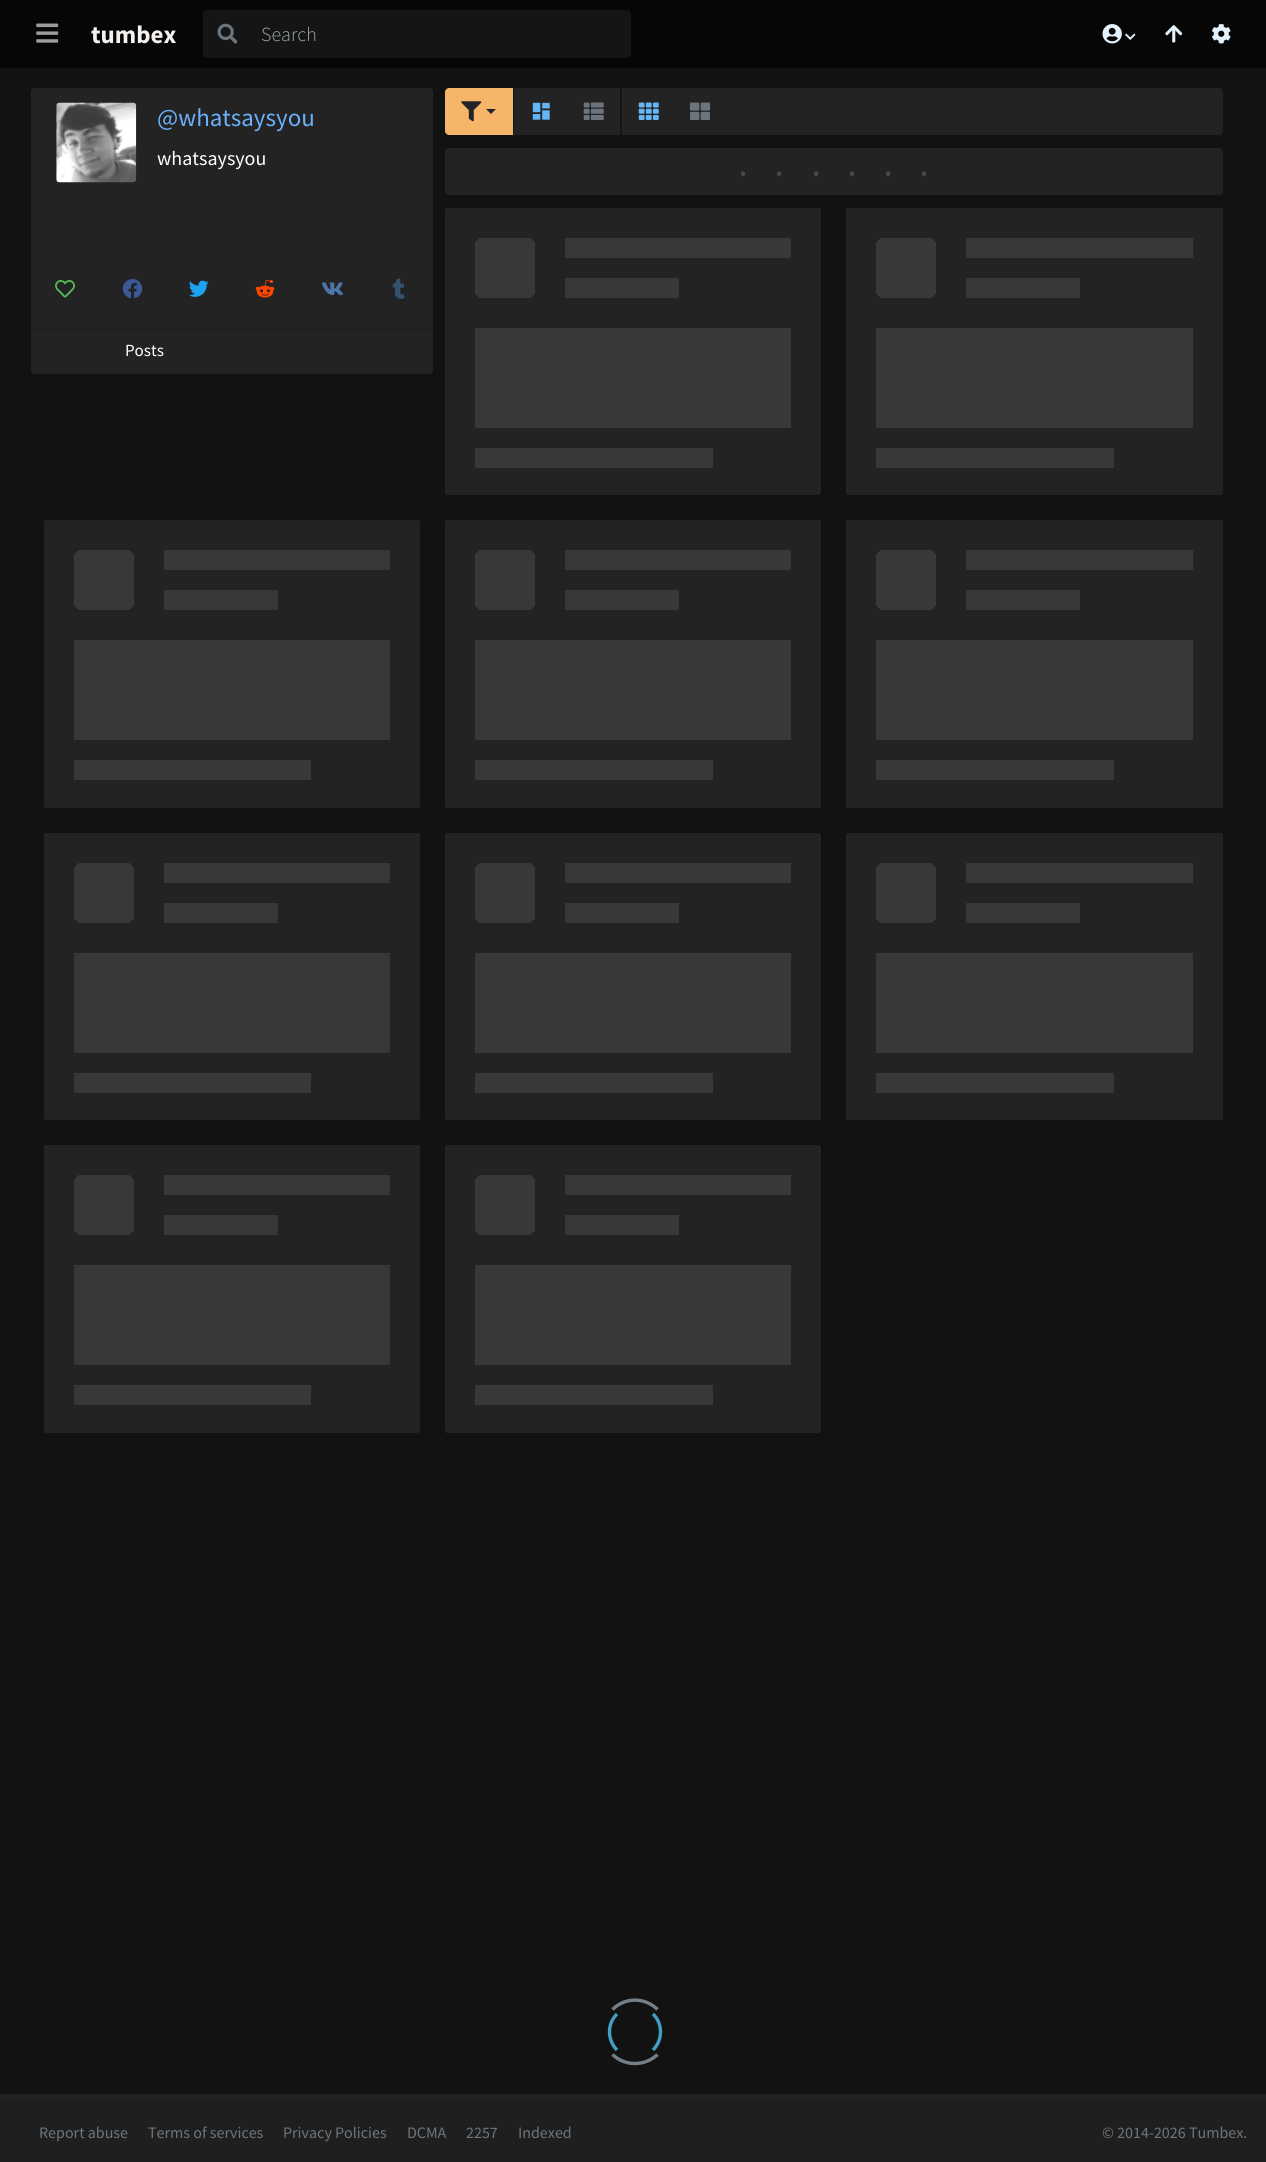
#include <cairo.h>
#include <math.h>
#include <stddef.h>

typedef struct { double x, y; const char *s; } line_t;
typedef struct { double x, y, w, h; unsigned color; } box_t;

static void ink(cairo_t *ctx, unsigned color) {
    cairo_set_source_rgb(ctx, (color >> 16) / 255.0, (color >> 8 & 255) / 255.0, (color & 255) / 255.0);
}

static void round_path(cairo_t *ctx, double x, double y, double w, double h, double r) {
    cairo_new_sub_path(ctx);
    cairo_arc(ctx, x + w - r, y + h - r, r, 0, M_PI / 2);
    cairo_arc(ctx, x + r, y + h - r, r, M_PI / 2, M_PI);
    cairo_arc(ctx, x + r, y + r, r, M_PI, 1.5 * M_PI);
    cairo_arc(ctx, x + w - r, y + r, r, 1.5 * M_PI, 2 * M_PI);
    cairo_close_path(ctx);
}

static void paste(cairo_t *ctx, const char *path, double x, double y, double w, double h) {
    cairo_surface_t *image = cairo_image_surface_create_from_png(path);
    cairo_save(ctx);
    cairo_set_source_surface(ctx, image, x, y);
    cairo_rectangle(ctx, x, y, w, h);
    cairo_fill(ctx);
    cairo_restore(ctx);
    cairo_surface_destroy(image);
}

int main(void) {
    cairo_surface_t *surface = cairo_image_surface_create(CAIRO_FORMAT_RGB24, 1266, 2162);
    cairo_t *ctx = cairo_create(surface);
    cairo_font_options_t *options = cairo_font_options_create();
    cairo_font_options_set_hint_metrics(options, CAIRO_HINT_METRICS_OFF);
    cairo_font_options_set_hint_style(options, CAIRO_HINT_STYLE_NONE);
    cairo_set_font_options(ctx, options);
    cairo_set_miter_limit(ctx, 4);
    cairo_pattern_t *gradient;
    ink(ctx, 0x121212);
    cairo_paint(ctx);
    cairo_set_source_rgba(ctx, 0, 0, 0, 0.65);
    cairo_rectangle(ctx, 0, 0, 1266, 68);
    cairo_fill(ctx);
    paste(ctx, "media/1.png", 36, 23, 23, 20);
    cairo_select_font_face(ctx, "Source Sans Pro", CAIRO_FONT_SLANT_NORMAL, CAIRO_FONT_WEIGHT_BOLD);
    cairo_set_font_size(ctx, 25);
    ink(ctx, 0xF4F1EF);
    cairo_move_to(ctx, 91, 43);
    cairo_show_text(ctx, "tumbex");
    ink(ctx, 0x151515);
    round_path(ctx, 203, 10, 428, 48, 4);
    cairo_fill(ctx);
    paste(ctx, "media/2.png", 217, 23, 21, 21);
    cairo_select_font_face(ctx, "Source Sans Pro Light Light", CAIRO_FONT_SLANT_NORMAL, CAIRO_FONT_WEIGHT_NORMAL);
    cairo_set_font_size(ctx, 20);
    ink(ctx, 0x9EA9AE);
    cairo_move_to(ctx, 261, 41);
    cairo_show_text(ctx, "Search");
    paste(ctx, "media/3.png", 1102, 24, 20, 20);
    paste(ctx, "media/4.png", 1125, 33, 11, 7);
    paste(ctx, "media/5.png", 1165, 25, 18, 18);
    paste(ctx, "media/6.png", 1212, 24, 19, 20);
    ink(ctx, 0x232323);
    round_path(ctx, 31, 88, 402, 286, 4);
    cairo_fill(ctx);
    ink(ctx, 0x1E1E1E);
    cairo_rectangle(ctx, 31, 198, 402, 1);
    cairo_fill(ctx);
    paste(ctx, "media/7.png", 56, 102, 81, 81);
    cairo_select_font_face(ctx, "Source Sans Pro", CAIRO_FONT_SLANT_NORMAL, CAIRO_FONT_WEIGHT_NORMAL);
    cairo_set_font_size(ctx, 25);
    ink(ctx, 0x6AB0FB);
    cairo_move_to(ctx, 157, 126);
    cairo_show_text(ctx, "@whatsaysyou");
    cairo_set_font_size(ctx, 20);
    ink(ctx, 0xFFFFFF);
    cairo_move_to(ctx, 157, 165);
    cairo_show_text(ctx, "whatsaysyou");
    ink(ctx, 0x1E1E1E);
    cairo_rectangle(ctx, 31, 249, 402, 1);
    cairo_fill(ctx);
    cairo_rectangle(ctx, 31, 328, 402, 1);
    cairo_fill(ctx);
    paste(ctx, "media/8.png", 55, 280, 20, 18);
    paste(ctx, "media/9.png", 122, 279, 21, 20);
    paste(ctx, "media/10.png", 189, 280, 20, 17);
    paste(ctx, "media/11.png", 255, 280, 20, 18);
    paste(ctx, "media/12.png", 322, 282, 21, 13);
    paste(ctx, "media/13.png", 392, 278, 13, 21);
    cairo_set_font_size(ctx, 17);
    ink(ctx, 0xFFFFFF);
    cairo_move_to(ctx, 125, 356);
    cairo_show_text(ctx, "Posts");
    ink(ctx, 0x232323);
    round_path(ctx, 445, 88, 778, 47, 4);
    cairo_fill(ctx);
    ink(ctx, 0x151515);
    cairo_rectangle(ctx, 513, 88, 1, 47);
    cairo_fill(ctx);
    ink(ctx, 0xF6B568);
    cairo_new_path(ctx);
    cairo_move_to(ctx, 449, 88);
    cairo_line_to(ctx, 513, 88);
    cairo_line_to(ctx, 513, 135);
    cairo_line_to(ctx, 449, 135);
    cairo_curve_to(ctx, 447, 135, 445, 133, 445, 131);
    cairo_line_to(ctx, 445, 92);
    cairo_curve_to(ctx, 445, 90, 447, 88, 449, 88);
    cairo_close_path(ctx);
    cairo_fill(ctx);
    paste(ctx, "media/14.png", 461, 101, 21, 21);
    ink(ctx, 0x212529);
    cairo_new_path(ctx);
    cairo_move_to(ctx, 486, 109);
    cairo_line_to(ctx, 496, 109);
    cairo_line_to(ctx, 491, 114);
    cairo_close_path(ctx);
    cairo_fill(ctx);
    ink(ctx, 0x151515);
    cairo_rectangle(ctx, 620, 88, 2, 47);
    cairo_fill(ctx);
    paste(ctx, "media/15.png", 532, 102, 18, 18);
    paste(ctx, "media/16.png", 583, 102, 21, 18);
    paste(ctx, "media/17.png", 638, 102, 21, 18);
    paste(ctx, "media/18.png", 690, 102, 20, 18);
    ink(ctx, 0x232323);
    round_path(ctx, 445, 148, 778, 47, 4);
    cairo_fill(ctx);
    cairo_set_font_size(ctx, 20);
    ink(ctx, 0x4C4645);
    {
        static const line_t items[] = {
            {740, 179, "•"},
            {776, 179, "•"},
            {813, 179, "•"},
            {849, 179, "•"},
            {885, 179, "•"},
            {921, 179, "•"},
        };
        for (size_t i = 0; i < sizeof items / sizeof *items; i++) {
            cairo_move_to(ctx, items[i].x, items[i].y);
            cairo_show_text(ctx, items[i].s);
        }
    }
    ink(ctx, 0x232323);
    round_path(ctx, 445, 208, 376, 287, 2.5);
    cairo_fill(ctx);
    {
        static const box_t items[] = {
            {475, 448, 238, 20, 0x383838},
            {475, 328, 316, 100, 0x383838},
            {565, 278, 114, 20, 0x383838},
            {565, 238, 226, 20, 0x383838},
        };
        for (size_t i = 0; i < sizeof items / sizeof *items; i++) {
            ink(ctx, items[i].color);
            cairo_rectangle(ctx, items[i].x, items[i].y, items[i].w, items[i].h);
            cairo_fill(ctx);
        }
    }
    gradient = cairo_pattern_create_radial(505, 268, 0, 505, 268, 40);
    cairo_pattern_add_color_stop_rgba(gradient, 0.99, 0.22, 0.22, 0.22, 1);
    cairo_pattern_add_color_stop_rgba(gradient, 0.99, 0.137, 0.137, 0.137, 1);
    cairo_set_source(ctx, gradient);
    cairo_pattern_destroy(gradient);
    cairo_rectangle(ctx, 475, 238, 60, 60);
    cairo_fill(ctx);
    ink(ctx, 0x232323);
    round_path(ctx, 846, 208, 377, 287, 2.5);
    cairo_fill(ctx);
    {
        static const box_t items[] = {
            {876, 448, 238, 20, 0x383838},
            {876, 328, 317, 100, 0x383838},
            {966, 278, 114, 20, 0x383838},
            {966, 238, 227, 20, 0x383838},
        };
        for (size_t i = 0; i < sizeof items / sizeof *items; i++) {
            ink(ctx, items[i].color);
            cairo_rectangle(ctx, items[i].x, items[i].y, items[i].w, items[i].h);
            cairo_fill(ctx);
        }
    }
    gradient = cairo_pattern_create_radial(906, 268, 0, 906, 268, 40);
    cairo_pattern_add_color_stop_rgba(gradient, 0.99, 0.22, 0.22, 0.22, 1);
    cairo_pattern_add_color_stop_rgba(gradient, 0.99, 0.137, 0.137, 0.137, 1);
    cairo_set_source(ctx, gradient);
    cairo_pattern_destroy(gradient);
    cairo_rectangle(ctx, 876, 238, 60, 60);
    cairo_fill(ctx);
    ink(ctx, 0x232323);
    round_path(ctx, 44, 520, 376, 288, 2.5);
    cairo_fill(ctx);
    {
        static const box_t items[] = {
            {74, 760, 237, 20, 0x383838},
            {74, 640, 316, 100, 0x383838},
            {164, 590, 114, 20, 0x383838},
            {164, 550, 226, 20, 0x383838},
        };
        for (size_t i = 0; i < sizeof items / sizeof *items; i++) {
            ink(ctx, items[i].color);
            cairo_rectangle(ctx, items[i].x, items[i].y, items[i].w, items[i].h);
            cairo_fill(ctx);
        }
    }
    gradient = cairo_pattern_create_radial(104, 580, 0, 104, 580, 40);
    cairo_pattern_add_color_stop_rgba(gradient, 0.99, 0.22, 0.22, 0.22, 1);
    cairo_pattern_add_color_stop_rgba(gradient, 0.99, 0.137, 0.137, 0.137, 1);
    cairo_set_source(ctx, gradient);
    cairo_pattern_destroy(gradient);
    cairo_rectangle(ctx, 74, 550, 60, 60);
    cairo_fill(ctx);
    ink(ctx, 0x232323);
    round_path(ctx, 445, 520, 376, 288, 2.5);
    cairo_fill(ctx);
    {
        static const box_t items[] = {
            {475, 760, 238, 20, 0x383838},
            {475, 640, 316, 100, 0x383838},
            {565, 590, 114, 20, 0x383838},
            {565, 550, 226, 20, 0x383838},
        };
        for (size_t i = 0; i < sizeof items / sizeof *items; i++) {
            ink(ctx, items[i].color);
            cairo_rectangle(ctx, items[i].x, items[i].y, items[i].w, items[i].h);
            cairo_fill(ctx);
        }
    }
    gradient = cairo_pattern_create_radial(505, 580, 0, 505, 580, 40);
    cairo_pattern_add_color_stop_rgba(gradient, 0.99, 0.22, 0.22, 0.22, 1);
    cairo_pattern_add_color_stop_rgba(gradient, 0.99, 0.137, 0.137, 0.137, 1);
    cairo_set_source(ctx, gradient);
    cairo_pattern_destroy(gradient);
    cairo_rectangle(ctx, 475, 550, 60, 60);
    cairo_fill(ctx);
    ink(ctx, 0x232323);
    round_path(ctx, 846, 520, 377, 288, 2.5);
    cairo_fill(ctx);
    {
        static const box_t items[] = {
            {876, 760, 238, 20, 0x383838},
            {876, 640, 317, 100, 0x383838},
            {966, 590, 114, 20, 0x383838},
            {966, 550, 227, 20, 0x383838},
        };
        for (size_t i = 0; i < sizeof items / sizeof *items; i++) {
            ink(ctx, items[i].color);
            cairo_rectangle(ctx, items[i].x, items[i].y, items[i].w, items[i].h);
            cairo_fill(ctx);
        }
    }
    gradient = cairo_pattern_create_radial(906, 580, 0, 906, 580, 40);
    cairo_pattern_add_color_stop_rgba(gradient, 0.99, 0.22, 0.22, 0.22, 1);
    cairo_pattern_add_color_stop_rgba(gradient, 0.99, 0.137, 0.137, 0.137, 1);
    cairo_set_source(ctx, gradient);
    cairo_pattern_destroy(gradient);
    cairo_rectangle(ctx, 876, 550, 60, 60);
    cairo_fill(ctx);
    ink(ctx, 0x232323);
    round_path(ctx, 44, 833, 376, 287, 2.5);
    cairo_fill(ctx);
    {
        static const box_t items[] = {
            {74, 1073, 237, 20, 0x383838},
            {74, 953, 316, 100, 0x383838},
            {164, 903, 114, 20, 0x383838},
            {164, 863, 226, 20, 0x383838},
        };
        for (size_t i = 0; i < sizeof items / sizeof *items; i++) {
            ink(ctx, items[i].color);
            cairo_rectangle(ctx, items[i].x, items[i].y, items[i].w, items[i].h);
            cairo_fill(ctx);
        }
    }
    gradient = cairo_pattern_create_radial(104, 893, 0, 104, 893, 40);
    cairo_pattern_add_color_stop_rgba(gradient, 0.99, 0.22, 0.22, 0.22, 1);
    cairo_pattern_add_color_stop_rgba(gradient, 0.99, 0.137, 0.137, 0.137, 1);
    cairo_set_source(ctx, gradient);
    cairo_pattern_destroy(gradient);
    cairo_rectangle(ctx, 74, 863, 60, 60);
    cairo_fill(ctx);
    ink(ctx, 0x232323);
    round_path(ctx, 445, 833, 376, 287, 2.5);
    cairo_fill(ctx);
    {
        static const box_t items[] = {
            {475, 1073, 238, 20, 0x383838},
            {475, 953, 316, 100, 0x383838},
            {565, 903, 114, 20, 0x383838},
            {565, 863, 226, 20, 0x383838},
        };
        for (size_t i = 0; i < sizeof items / sizeof *items; i++) {
            ink(ctx, items[i].color);
            cairo_rectangle(ctx, items[i].x, items[i].y, items[i].w, items[i].h);
            cairo_fill(ctx);
        }
    }
    gradient = cairo_pattern_create_radial(505, 893, 0, 505, 893, 40);
    cairo_pattern_add_color_stop_rgba(gradient, 0.99, 0.22, 0.22, 0.22, 1);
    cairo_pattern_add_color_stop_rgba(gradient, 0.99, 0.137, 0.137, 0.137, 1);
    cairo_set_source(ctx, gradient);
    cairo_pattern_destroy(gradient);
    cairo_rectangle(ctx, 475, 863, 60, 60);
    cairo_fill(ctx);
    ink(ctx, 0x232323);
    round_path(ctx, 846, 833, 377, 287, 2.5);
    cairo_fill(ctx);
    {
        static const box_t items[] = {
            {876, 1073, 238, 20, 0x383838},
            {876, 953, 317, 100, 0x383838},
            {966, 903, 114, 20, 0x383838},
            {966, 863, 227, 20, 0x383838},
        };
        for (size_t i = 0; i < sizeof items / sizeof *items; i++) {
            ink(ctx, items[i].color);
            cairo_rectangle(ctx, items[i].x, items[i].y, items[i].w, items[i].h);
            cairo_fill(ctx);
        }
    }
    gradient = cairo_pattern_create_radial(906, 893, 0, 906, 893, 40);
    cairo_pattern_add_color_stop_rgba(gradient, 0.99, 0.22, 0.22, 0.22, 1);
    cairo_pattern_add_color_stop_rgba(gradient, 0.99, 0.137, 0.137, 0.137, 1);
    cairo_set_source(ctx, gradient);
    cairo_pattern_destroy(gradient);
    cairo_rectangle(ctx, 876, 863, 60, 60);
    cairo_fill(ctx);
    ink(ctx, 0x232323);
    round_path(ctx, 44, 1145, 376, 288, 2.5);
    cairo_fill(ctx);
    {
        static const box_t items[] = {
            {74, 1385, 237, 20, 0x383838},
            {74, 1265, 316, 100, 0x383838},
            {164, 1215, 114, 20, 0x383838},
            {164, 1175, 226, 20, 0x383838},
        };
        for (size_t i = 0; i < sizeof items / sizeof *items; i++) {
            ink(ctx, items[i].color);
            cairo_rectangle(ctx, items[i].x, items[i].y, items[i].w, items[i].h);
            cairo_fill(ctx);
        }
    }
    gradient = cairo_pattern_create_radial(104, 1205, 0, 104, 1205, 40);
    cairo_pattern_add_color_stop_rgba(gradient, 0.99, 0.22, 0.22, 0.22, 1);
    cairo_pattern_add_color_stop_rgba(gradient, 0.99, 0.137, 0.137, 0.137, 1);
    cairo_set_source(ctx, gradient);
    cairo_pattern_destroy(gradient);
    cairo_rectangle(ctx, 74, 1175, 60, 60);
    cairo_fill(ctx);
    ink(ctx, 0x232323);
    round_path(ctx, 445, 1145, 376, 288, 2.5);
    cairo_fill(ctx);
    {
        static const box_t items[] = {
            {475, 1385, 238, 20, 0x383838},
            {475, 1265, 316, 100, 0x383838},
            {565, 1215, 114, 20, 0x383838},
            {565, 1175, 226, 20, 0x383838},
        };
        for (size_t i = 0; i < sizeof items / sizeof *items; i++) {
            ink(ctx, items[i].color);
            cairo_rectangle(ctx, items[i].x, items[i].y, items[i].w, items[i].h);
            cairo_fill(ctx);
        }
    }
    gradient = cairo_pattern_create_radial(505, 1205, 0, 505, 1205, 40);
    cairo_pattern_add_color_stop_rgba(gradient, 0.99, 0.22, 0.22, 0.22, 1);
    cairo_pattern_add_color_stop_rgba(gradient, 0.99, 0.137, 0.137, 0.137, 1);
    cairo_set_source(ctx, gradient);
    cairo_pattern_destroy(gradient);
    cairo_rectangle(ctx, 475, 1175, 60, 60);
    cairo_fill(ctx);
    cairo_new_path(ctx);
    cairo_move_to(ctx, 612.5, 2009.5);
    cairo_curve_to(ctx, 625, 1997, 645, 1997, 657.5, 2009.5);
    ink(ctx, 0x748089);
    cairo_set_line_width(ctx, 3.4);
    cairo_stroke(ctx);
    cairo_new_path(ctx);
    cairo_move_to(ctx, 657.5, 2054.5);
    cairo_curve_to(ctx, 645, 2066.5, 625, 2066.5, 612.5, 2054.5);
    cairo_stroke(ctx);
    cairo_new_path(ctx);
    cairo_move_to(ctx, 653, 2014);
    cairo_curve_to(ctx, 663, 2023.5, 663, 2040, 653, 2050);
    cairo_move_to(ctx, 617, 2050);
    cairo_curve_to(ctx, 607, 2040, 607, 2023.5, 617, 2014);
    ink(ctx, 0x429EC2);
    cairo_stroke(ctx);
    ink(ctx, 0x1F1F1F);
    cairo_rectangle(ctx, 0, 2100, 1266, 62);
    cairo_fill(ctx);
    ink(ctx, 0x212121);
    cairo_rectangle(ctx, 0, 2094, 1266, 6);
    cairo_fill(ctx);
    cairo_set_font_size(ctx, 16);
    ink(ctx, 0x6C757D);
    {
        static const line_t items[] = {
            {39, 2138, "Report abuse"},
            {148, 2138, "Terms of services"},
            {283, 2138, "Privacy Policies"},
            {407, 2138, "DCMA"},
            {466, 2138, "2257"},
            {518, 2138, "Indexed"},
            {1102, 2138, "© 2014-2026 Tumbex."},
        };
        for (size_t i = 0; i < sizeof items / sizeof *items; i++) {
            cairo_move_to(ctx, items[i].x, items[i].y);
            cairo_show_text(ctx, items[i].s);
        }
    }
    cairo_surface_write_to_png(surface, "image.png");
    cairo_font_options_destroy(options);
    cairo_destroy(ctx);
    cairo_surface_destroy(surface);
    return 0;
}
